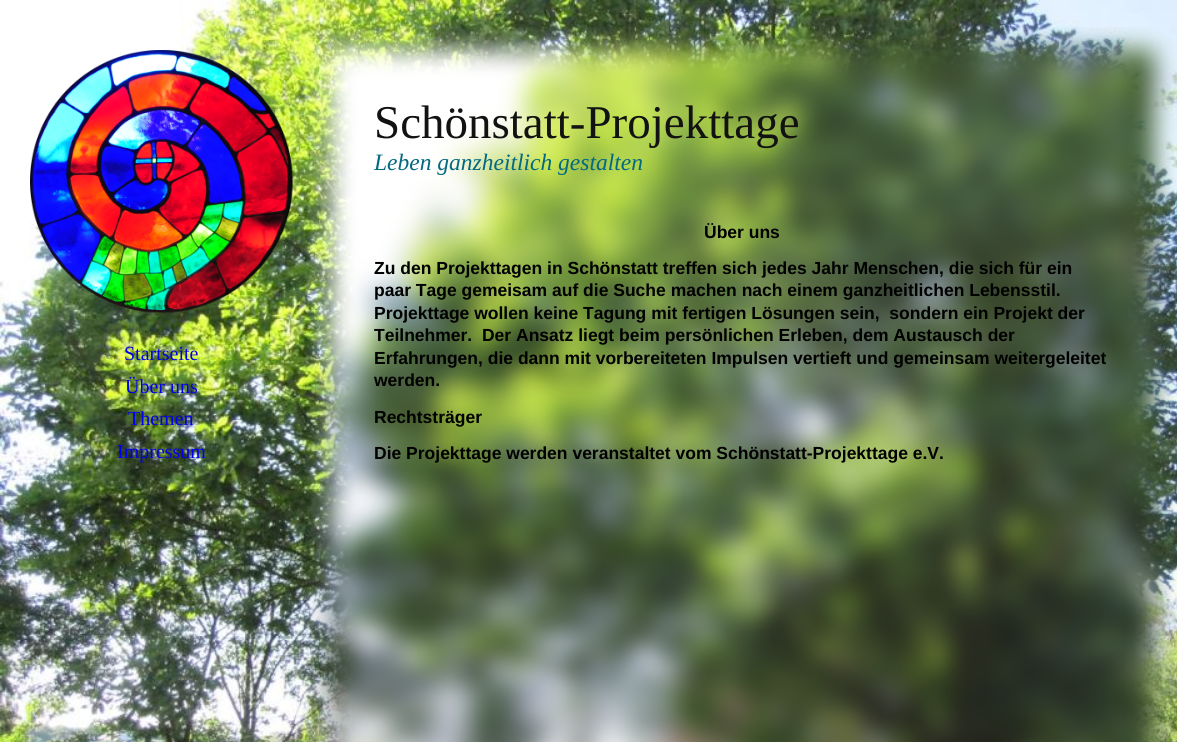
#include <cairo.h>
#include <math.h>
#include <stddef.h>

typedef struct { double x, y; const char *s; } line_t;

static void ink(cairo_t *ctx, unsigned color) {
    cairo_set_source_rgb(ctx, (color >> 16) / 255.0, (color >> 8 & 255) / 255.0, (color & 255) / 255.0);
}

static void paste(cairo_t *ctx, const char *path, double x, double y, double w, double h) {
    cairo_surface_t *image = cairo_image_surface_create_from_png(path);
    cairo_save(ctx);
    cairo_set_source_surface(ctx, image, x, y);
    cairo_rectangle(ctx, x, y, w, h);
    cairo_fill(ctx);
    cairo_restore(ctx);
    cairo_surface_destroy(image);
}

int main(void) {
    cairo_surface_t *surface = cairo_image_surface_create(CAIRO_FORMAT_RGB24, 1177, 742);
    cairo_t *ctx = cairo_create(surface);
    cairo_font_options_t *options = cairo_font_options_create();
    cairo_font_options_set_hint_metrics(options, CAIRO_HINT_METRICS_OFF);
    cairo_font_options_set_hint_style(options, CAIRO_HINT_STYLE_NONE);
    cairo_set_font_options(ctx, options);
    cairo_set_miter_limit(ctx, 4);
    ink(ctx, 0xFFFFFF);
    cairo_paint(ctx);
    paste(ctx, "media/1.png", 0, 0, 1177, 742);
    paste(ctx, "media/2.png", 30, 50, 263, 263);
    cairo_select_font_face(ctx, "Liberation Serif", CAIRO_FONT_SLANT_NORMAL, CAIRO_FONT_WEIGHT_NORMAL);
    cairo_set_font_size(ctx, 20);
    ink(ctx, 0x0000EE);
    {
        static const line_t items[] = {
            {124, 360, "Startseite"},
            {125, 393, "Über uns"},
            {128, 425, "Themen"},
            {117, 458, "Impressum"},
        };
        for (size_t i = 0; i < sizeof items / sizeof *items; i++) {
            cairo_move_to(ctx, items[i].x, items[i].y);
            cairo_show_text(ctx, items[i].s);
        }
    }
    paste(ctx, "media/3.png", 307, 27, 870, 715);
    cairo_set_font_size(ctx, 47);
    ink(ctx, 0x121212);
    cairo_move_to(ctx, 374, 138);
    cairo_show_text(ctx, "Schönstatt-Projekttage");
    cairo_select_font_face(ctx, "Liberation Serif", CAIRO_FONT_SLANT_ITALIC, CAIRO_FONT_WEIGHT_NORMAL);
    cairo_set_font_size(ctx, 23.5);
    ink(ctx, 0x036980);
    cairo_move_to(ctx, 374, 170);
    cairo_show_text(ctx, "Leben ganzheitlich gestalten");
    cairo_select_font_face(ctx, "Liberation Sans", CAIRO_FONT_SLANT_NORMAL, CAIRO_FONT_WEIGHT_BOLD);
    cairo_set_font_size(ctx, 17.5);
    ink(ctx, 0x000000);
    {
        static const line_t items[] = {
            {704, 238, "Über uns"},
            {374, 274, "Zu den Projekttagen in Schönstatt treffen sich jedes Jahr Menschen, die sich für ein"},
            {374, 296, "paar Tage gemeisam auf die Suche machen nach einem ganzheitlichen Lebensstil."},
            {374, 319, "Projekttage wollen keine Tagung mit fertigen Lösungen sein,  sondern ein Projekt der"},
            {374, 341, "Teilnehmer.  Der Ansatz liegt beim persönlichen Erleben, dem Austausch der"},
            {374, 364, "Erfahrungen, die dann mit vorbereiteten Impulsen vertieft und gemeinsam weitergeleitet"},
            {374, 386, "werden."},
            {374, 423, "Rechtsträger"},
            {374, 459, "Die Projekttage werden veranstaltet vom Schönstatt-Projekttage e.V."},
        };
        for (size_t i = 0; i < sizeof items / sizeof *items; i++) {
            cairo_move_to(ctx, items[i].x, items[i].y);
            cairo_show_text(ctx, items[i].s);
        }
    }
    cairo_surface_write_to_png(surface, "image.png");
    cairo_font_options_destroy(options);
    cairo_destroy(ctx);
    cairo_surface_destroy(surface);
    return 0;
}
